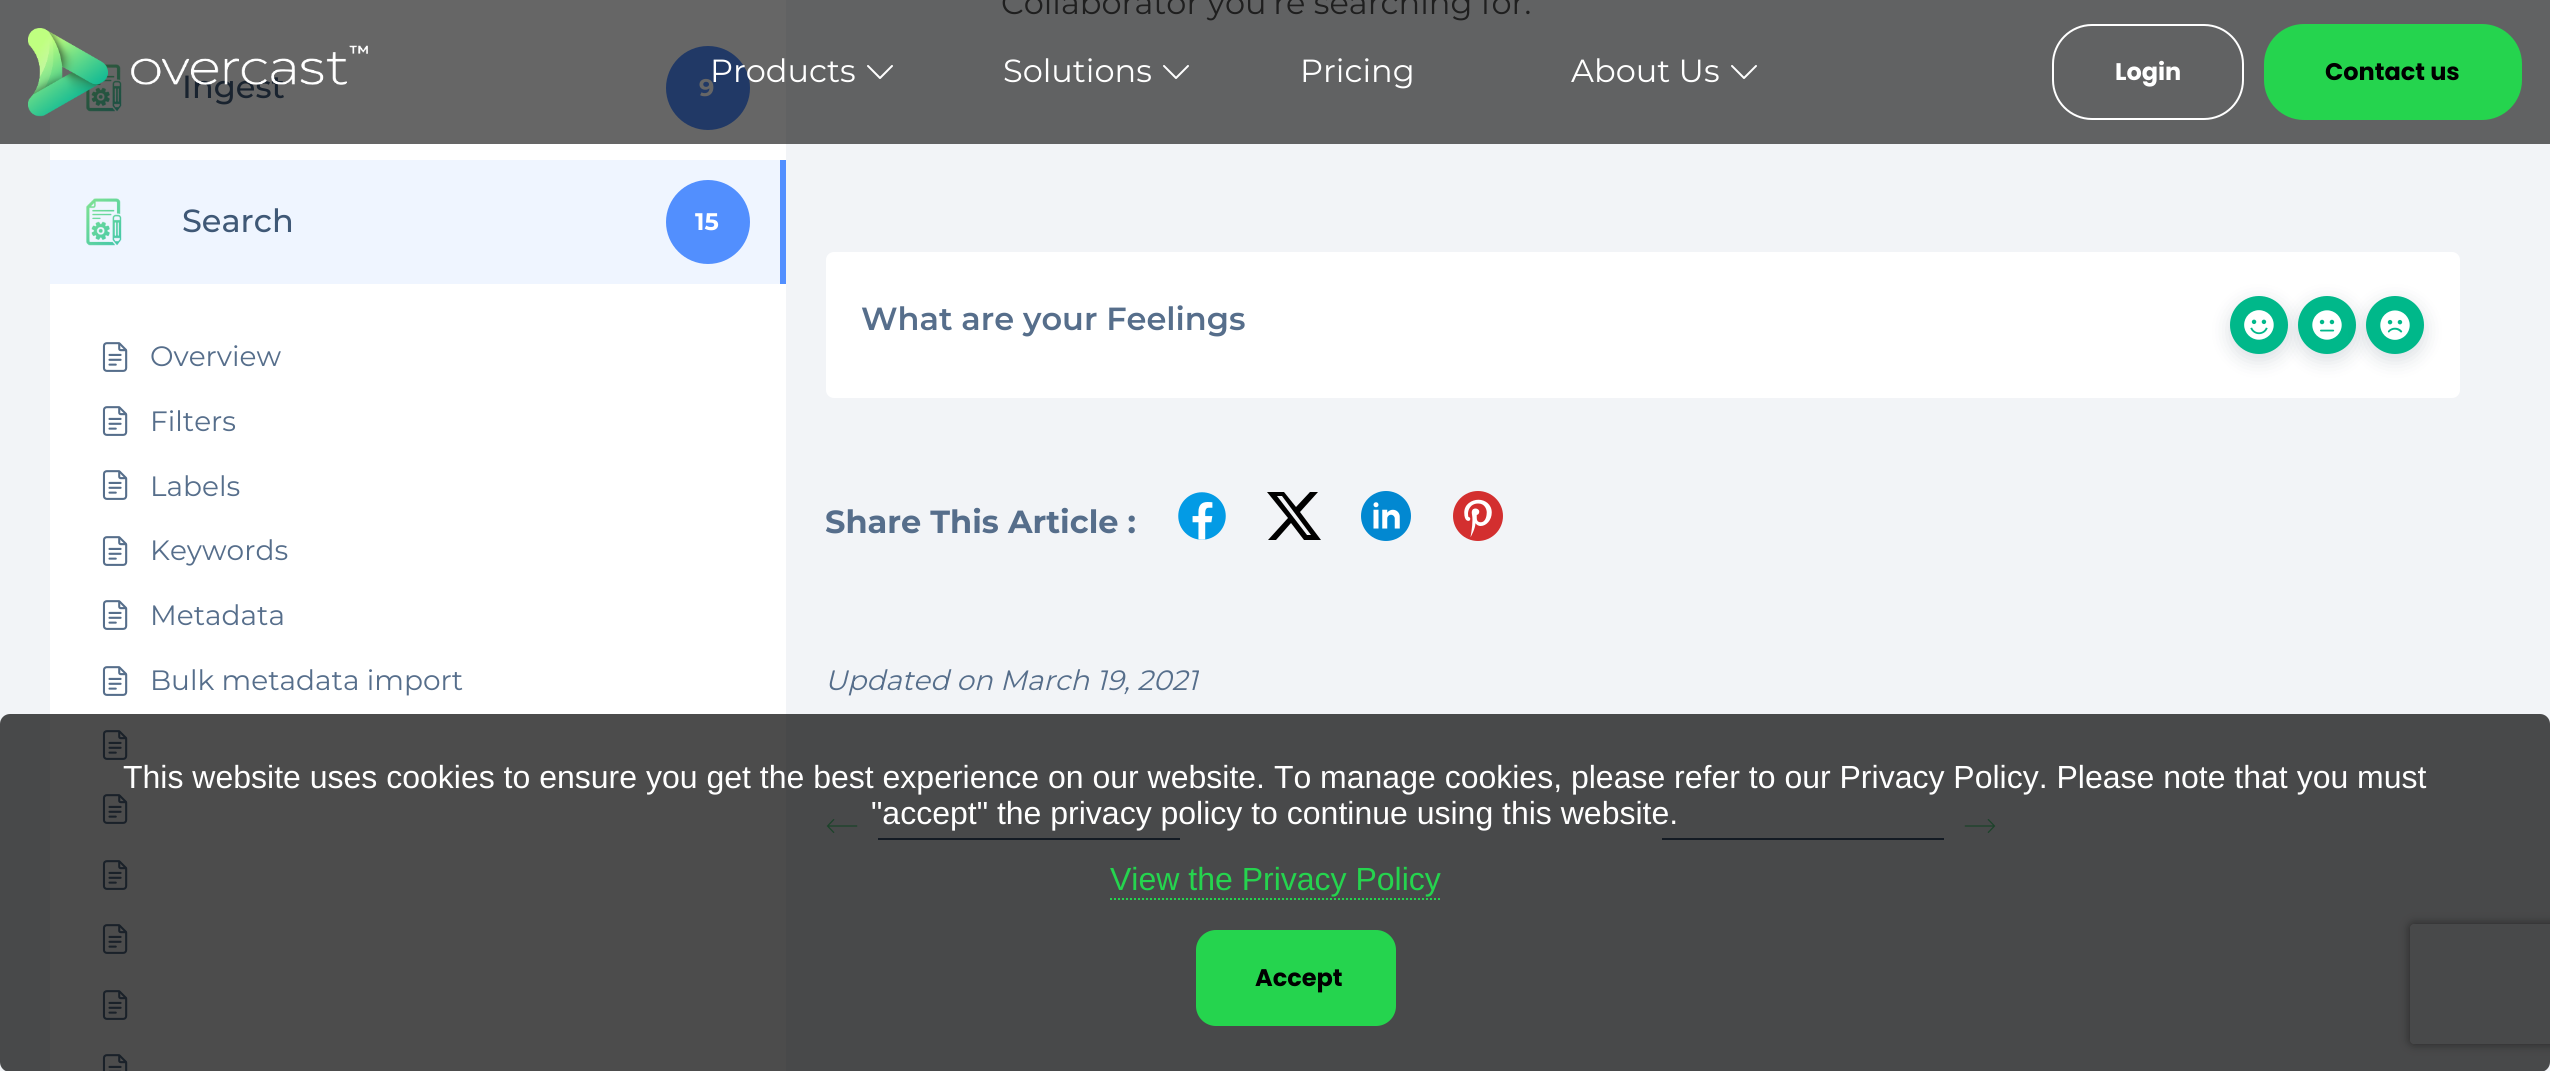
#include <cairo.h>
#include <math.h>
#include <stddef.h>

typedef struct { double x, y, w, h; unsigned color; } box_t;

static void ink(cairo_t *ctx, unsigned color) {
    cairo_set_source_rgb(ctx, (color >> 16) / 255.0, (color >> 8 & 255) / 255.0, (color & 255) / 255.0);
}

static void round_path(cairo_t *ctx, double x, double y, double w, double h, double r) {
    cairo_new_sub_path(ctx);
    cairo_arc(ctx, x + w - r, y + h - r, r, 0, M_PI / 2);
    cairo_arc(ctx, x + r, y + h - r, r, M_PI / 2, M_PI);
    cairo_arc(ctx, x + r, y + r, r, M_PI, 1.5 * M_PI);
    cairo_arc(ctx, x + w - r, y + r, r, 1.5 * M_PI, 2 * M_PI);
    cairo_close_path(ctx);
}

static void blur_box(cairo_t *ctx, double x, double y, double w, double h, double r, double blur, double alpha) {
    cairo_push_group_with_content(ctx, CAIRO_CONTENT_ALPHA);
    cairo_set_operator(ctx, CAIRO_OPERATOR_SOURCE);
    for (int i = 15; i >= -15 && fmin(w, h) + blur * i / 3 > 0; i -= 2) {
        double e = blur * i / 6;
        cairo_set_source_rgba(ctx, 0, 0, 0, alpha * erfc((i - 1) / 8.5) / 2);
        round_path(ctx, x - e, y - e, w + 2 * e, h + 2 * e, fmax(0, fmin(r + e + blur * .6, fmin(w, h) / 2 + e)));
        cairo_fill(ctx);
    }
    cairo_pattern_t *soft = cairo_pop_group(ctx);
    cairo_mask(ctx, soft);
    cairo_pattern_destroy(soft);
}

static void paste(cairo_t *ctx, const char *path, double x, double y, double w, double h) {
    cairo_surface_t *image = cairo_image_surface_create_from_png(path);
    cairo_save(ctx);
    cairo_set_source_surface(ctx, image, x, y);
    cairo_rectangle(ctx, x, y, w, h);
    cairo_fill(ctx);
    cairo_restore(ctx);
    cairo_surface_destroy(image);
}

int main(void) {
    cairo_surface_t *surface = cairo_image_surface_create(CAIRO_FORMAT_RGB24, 2550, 1071);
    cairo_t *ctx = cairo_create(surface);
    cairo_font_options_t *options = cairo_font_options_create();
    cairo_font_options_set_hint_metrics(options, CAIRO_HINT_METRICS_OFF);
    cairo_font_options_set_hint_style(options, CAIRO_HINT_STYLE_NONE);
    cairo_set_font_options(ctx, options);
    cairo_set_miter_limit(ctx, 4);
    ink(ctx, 0xF2F4F7);
    cairo_paint(ctx);
    {
        static const box_t items[] = {
            {0, 0, 2550, 144, 0x616263},
            {50, 144, 736, 927, 0xFFFFFF},
            {50, 0, 736, 144, 0x666666},
        };
        for (size_t i = 0; i < sizeof items / sizeof *items; i++) {
            ink(ctx, items[i].color);
            cairo_rectangle(ctx, items[i].x, items[i].y, items[i].w, items[i].h);
            cairo_fill(ctx);
        }
    }
    paste(ctx, "media/1.png", 86, 64, 36, 48);
    cairo_select_font_face(ctx, "Montserrat Medium", CAIRO_FONT_SLANT_NORMAL, CAIRO_FONT_WEIGHT_NORMAL);
    cairo_set_font_size(ctx, 32);
    ink(ctx, 0x19232F);
    cairo_move_to(ctx, 182, 98);
    cairo_show_text(ctx, "Ingest");
    ink(ctx, 0x213966);
    cairo_new_path(ctx);
    cairo_arc(ctx, 708, 88, 42, 0, 2 * M_PI);
    cairo_fill(ctx);
    cairo_select_font_face(ctx, "Montserrat", CAIRO_FONT_SLANT_NORMAL, CAIRO_FONT_WEIGHT_BOLD);
    cairo_set_font_size(ctx, 24);
    ink(ctx, 0x666666);
    cairo_move_to(ctx, 699, 96);
    cairo_show_text(ctx, "9");
    ink(ctx, 0xEFF5FF);
    cairo_rectangle(ctx, 50, 160, 730, 124);
    cairo_fill(ctx);
    ink(ctx, 0x528FFF);
    cairo_rectangle(ctx, 780, 160, 6, 124);
    cairo_fill(ctx);
    paste(ctx, "media/2.png", 86, 198, 36, 48);
    cairo_select_font_face(ctx, "Montserrat Medium", CAIRO_FONT_SLANT_NORMAL, CAIRO_FONT_WEIGHT_NORMAL);
    cairo_set_font_size(ctx, 32);
    ink(ctx, 0x3F5876);
    cairo_move_to(ctx, 182, 232);
    cairo_show_text(ctx, "Search");
    ink(ctx, 0x528FFE);
    cairo_new_path(ctx);
    cairo_arc(ctx, 708, 222, 42, 0, 2 * M_PI);
    cairo_fill(ctx);
    cairo_select_font_face(ctx, "Montserrat", CAIRO_FONT_SLANT_NORMAL, CAIRO_FONT_WEIGHT_BOLD);
    cairo_set_font_size(ctx, 24);
    ink(ctx, 0xFFFFFF);
    cairo_move_to(ctx, 695, 230);
    cairo_show_text(ctx, "15");
    paste(ctx, "media/3.png", 102, 342, 26, 30);
    cairo_select_font_face(ctx, "Montserrat", CAIRO_FONT_SLANT_NORMAL, CAIRO_FONT_WEIGHT_NORMAL);
    cairo_set_font_size(ctx, 28);
    ink(ctx, 0x566E8B);
    cairo_move_to(ctx, 150, 366);
    cairo_show_text(ctx, "Overview");
    paste(ctx, "media/3.png", 102, 406, 26, 30);
    cairo_move_to(ctx, 150, 431);
    cairo_show_text(ctx, "Filters");
    paste(ctx, "media/3.png", 102, 470, 26, 30);
    cairo_move_to(ctx, 150, 496);
    cairo_show_text(ctx, "Labels");
    paste(ctx, "media/3.png", 102, 536, 26, 30);
    cairo_move_to(ctx, 150, 560);
    cairo_show_text(ctx, "Keywords");
    paste(ctx, "media/3.png", 102, 600, 26, 30);
    cairo_move_to(ctx, 150, 625);
    cairo_show_text(ctx, "Metadata");
    paste(ctx, "media/3.png", 102, 666, 26, 30);
    cairo_move_to(ctx, 150, 690);
    cairo_show_text(ctx, "Bulk metadata import");
    paste(ctx, "media/3.png", 102, 730, 26, 30);
    paste(ctx, "media/3.png", 102, 794, 26, 30);
    paste(ctx, "media/3.png", 102, 860, 26, 30);
    paste(ctx, "media/3.png", 102, 924, 26, 30);
    paste(ctx, "media/3.png", 102, 990, 26, 30);
    paste(ctx, "media/4.png", 102, 1054, 26, 17);
    cairo_set_font_size(ctx, 32);
    ink(ctx, 0x1F1F1F);
    cairo_move_to(ctx, 1001, 14);
    cairo_show_text(ctx, "Collaborator you’re searching for.");
    ink(ctx, 0xFFFFFF);
    round_path(ctx, 826, 252, 1634, 146, 8);
    cairo_fill(ctx);
    cairo_select_font_face(ctx, "Montserrat SemiBold", CAIRO_FONT_SLANT_NORMAL, CAIRO_FONT_WEIGHT_NORMAL);
    ink(ctx, 0x566E8B);
    cairo_move_to(ctx, 861, 330);
    cairo_show_text(ctx, "What are your Feelings");
    ink(ctx, 0x031D3C);
    blur_box(ctx, 2230, 302, 58, 58, 29, 10, 0.15);
    ink(ctx, 0x00B88A);
    cairo_arc(ctx, 2259, 325, 29, 0, 2 * M_PI);
    cairo_fill(ctx);
    ink(ctx, 0x031D3C);
    blur_box(ctx, 2298, 302, 58, 58, 29, 10, 0.15);
    paste(ctx, "media/5.png", 2244, 310, 30, 30);
    ink(ctx, 0x00B88A);
    cairo_arc(ctx, 2327, 325, 29, 0, 2 * M_PI);
    cairo_fill(ctx);
    ink(ctx, 0x031D3C);
    blur_box(ctx, 2366, 302, 58, 58, 29, 10, 0.15);
    paste(ctx, "media/6.png", 2312, 310, 30, 30);
    ink(ctx, 0x00B88A);
    cairo_arc(ctx, 2395, 325, 29, 0, 2 * M_PI);
    cairo_fill(ctx);
    paste(ctx, "media/7.png", 2380, 310, 30, 30);
    cairo_select_font_face(ctx, "Montserrat", CAIRO_FONT_SLANT_NORMAL, CAIRO_FONT_WEIGHT_BOLD);
    ink(ctx, 0x566E8B);
    cairo_move_to(ctx, 825, 533);
    cairo_show_text(ctx, "Share This Article :");
    paste(ctx, "media/8.png", 1178, 492, 48, 48);
    ink(ctx, 0x000000);
    cairo_new_path(ctx);
    cairo_move_to(ctx, 1310, 492);
    cairo_line_to(ctx, 1318, 492);
    cairo_line_to(ctx, 1300, 512);
    cairo_line_to(ctx, 1321, 540);
    cairo_line_to(ctx, 1304, 540);
    cairo_line_to(ctx, 1291, 523);
    cairo_line_to(ctx, 1276, 540);
    cairo_line_to(ctx, 1268, 540);
    cairo_line_to(ctx, 1288, 518);
    cairo_line_to(ctx, 1267, 492);
    cairo_line_to(ctx, 1284, 492);
    cairo_line_to(ctx, 1296, 507);
    cairo_close_path(ctx);
    cairo_move_to(ctx, 1307, 535);
    cairo_line_to(ctx, 1311, 535);
    cairo_line_to(ctx, 1282, 496);
    cairo_line_to(ctx, 1277, 496);
    cairo_close_path(ctx);
    cairo_fill(ctx);
    paste(ctx, "media/9.png", 1361, 491, 50, 50);
    paste(ctx, "media/10.png", 1453, 491, 50, 50);
    cairo_select_font_face(ctx, "Montserrat", CAIRO_FONT_SLANT_ITALIC, CAIRO_FONT_WEIGHT_NORMAL);
    cairo_set_font_size(ctx, 28);
    ink(ctx, 0x566E8B);
    cairo_move_to(ctx, 825, 690);
    cairo_show_text(ctx, "Updated on March 19, 2021");
    paste(ctx, "media/11.png", 826, 819, 32, 14);
    ink(ctx, 0x3F5876);
    cairo_rectangle(ctx, 878, 838, 302, 2);
    cairo_fill(ctx);
    paste(ctx, "media/12.png", 1964, 819, 32, 14);
    cairo_rectangle(ctx, 1662, 838, 282, 2);
    cairo_fill(ctx);
    paste(ctx, "media/13.png", 28, 28, 340, 89);
    cairo_select_font_face(ctx, "Montserrat", CAIRO_FONT_SLANT_NORMAL, CAIRO_FONT_WEIGHT_NORMAL);
    cairo_set_font_size(ctx, 32);
    ink(ctx, 0xFFFFFF);
    cairo_move_to(ctx, 710, 82);
    cairo_show_text(ctx, "Products");
    paste(ctx, "media/14.png", 867, 65, 26, 14);
    cairo_move_to(ctx, 1003, 82);
    cairo_show_text(ctx, "Solutions");
    paste(ctx, "media/14.png", 1163, 65, 26, 14);
    cairo_move_to(ctx, 1300, 82);
    cairo_show_text(ctx, "Pricing");
    cairo_move_to(ctx, 1571, 82);
    cairo_show_text(ctx, "About Us");
    paste(ctx, "media/14.png", 1731, 65, 26, 14);
    round_path(ctx, 2053, 25, 190, 94, 39);
    cairo_stroke(ctx);
    cairo_select_font_face(ctx, "Poppins", CAIRO_FONT_SLANT_NORMAL, CAIRO_FONT_WEIGHT_BOLD);
    cairo_set_font_size(ctx, 24);
    cairo_move_to(ctx, 2115, 80);
    cairo_show_text(ctx, "Login");
    ink(ctx, 0x25D44E);
    round_path(ctx, 2265, 25, 256, 94, 39);
    cairo_fill_preserve(ctx);
    cairo_stroke(ctx);
    ink(ctx, 0x000000);
    cairo_move_to(ctx, 2325, 80);
    cairo_show_text(ctx, "Contact us");
    cairo_save(ctx);
    cairo_set_fill_rule(ctx, CAIRO_FILL_RULE_EVEN_ODD);
    cairo_new_path(ctx);
    cairo_move_to(ctx, 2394, 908);
    cairo_line_to(ctx, 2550, 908);
    cairo_line_to(ctx, 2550, 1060);
    cairo_line_to(ctx, 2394, 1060);
    cairo_close_path(ctx);
    cairo_move_to(ctx, 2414, 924);
    cairo_line_to(ctx, 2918, 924);
    cairo_curve_to(ctx, 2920, 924, 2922, 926, 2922, 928);
    cairo_line_to(ctx, 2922, 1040);
    cairo_curve_to(ctx, 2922, 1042, 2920, 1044, 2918, 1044);
    cairo_line_to(ctx, 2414, 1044);
    cairo_curve_to(ctx, 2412, 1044, 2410, 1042, 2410, 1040);
    cairo_line_to(ctx, 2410, 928);
    cairo_curve_to(ctx, 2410, 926, 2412, 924, 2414, 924);
    cairo_close_path(ctx);
    cairo_clip(ctx);
    ink(ctx, 0x808080);
    blur_box(ctx, 2410, 924, 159, 120, 4, 5, 1);
    cairo_restore(ctx);
    cairo_set_source_rgba(ctx, 0, 0, 0, 0.7);
    round_path(ctx, 0, 714, 2550, 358, 10);
    cairo_fill(ctx);
    cairo_select_font_face(ctx, "Liberation Sans", CAIRO_FONT_SLANT_NORMAL, CAIRO_FONT_WEIGHT_NORMAL);
    cairo_set_font_size(ctx, 32);
    ink(ctx, 0xFFFFFF);
    cairo_move_to(ctx, 123, 788);
    cairo_show_text(ctx, "This website uses cookies to ensure you get the best experience on our website. To manage cookies, please refer to our Privacy Policy. Please note that you must");
    cairo_move_to(ctx, 871, 824);
    cairo_show_text(ctx, "\"accept\" the privacy policy to continue using this website.");
    cairo_new_path(ctx);
    cairo_move_to(ctx, 1110, 899);
    cairo_line_to(ctx, 1440, 899);
    ink(ctx, 0x25D44E);
    cairo_set_dash(ctx, (double[]){2, 2}, 2, 0);
    cairo_stroke(ctx);
    cairo_move_to(ctx, 1110, 890);
    cairo_show_text(ctx, "View the Privacy Policy");
    round_path(ctx, 1196, 930, 200, 96, 20);
    cairo_fill(ctx);
    cairo_select_font_face(ctx, "Poppins", CAIRO_FONT_SLANT_NORMAL, CAIRO_FONT_WEIGHT_BOLD);
    cairo_set_font_size(ctx, 24);
    ink(ctx, 0x000000);
    cairo_move_to(ctx, 1255, 986);
    cairo_show_text(ctx, "Accept");
    cairo_surface_write_to_png(surface, "image.png");
    cairo_font_options_destroy(options);
    cairo_destroy(ctx);
    cairo_surface_destroy(surface);
    return 0;
}
